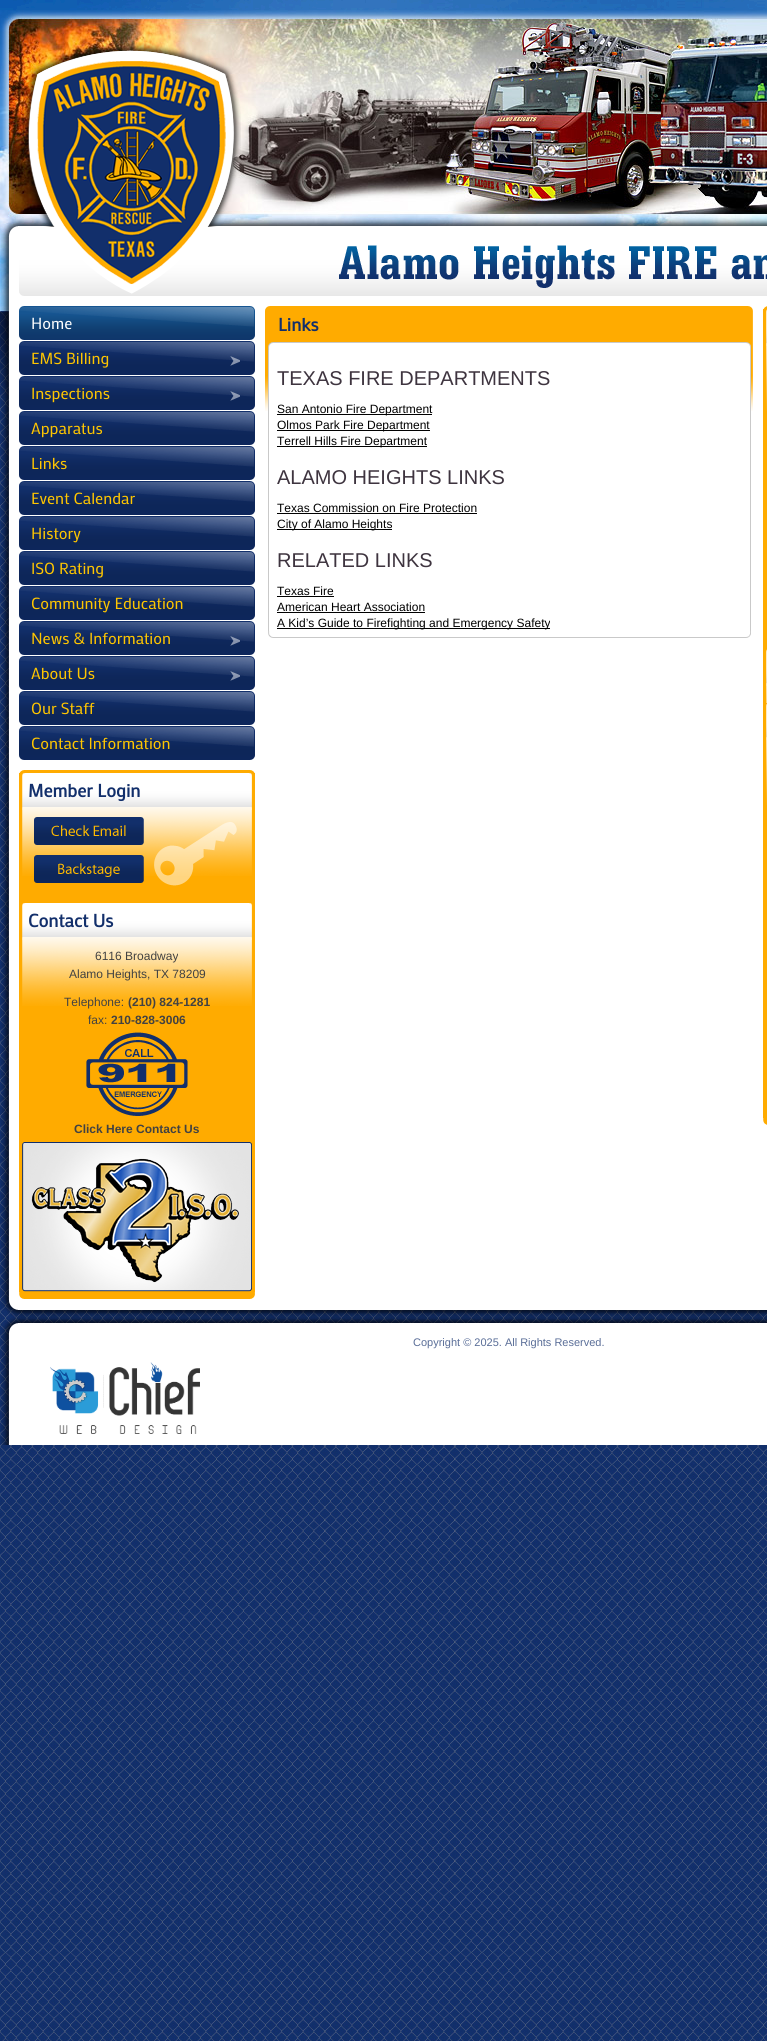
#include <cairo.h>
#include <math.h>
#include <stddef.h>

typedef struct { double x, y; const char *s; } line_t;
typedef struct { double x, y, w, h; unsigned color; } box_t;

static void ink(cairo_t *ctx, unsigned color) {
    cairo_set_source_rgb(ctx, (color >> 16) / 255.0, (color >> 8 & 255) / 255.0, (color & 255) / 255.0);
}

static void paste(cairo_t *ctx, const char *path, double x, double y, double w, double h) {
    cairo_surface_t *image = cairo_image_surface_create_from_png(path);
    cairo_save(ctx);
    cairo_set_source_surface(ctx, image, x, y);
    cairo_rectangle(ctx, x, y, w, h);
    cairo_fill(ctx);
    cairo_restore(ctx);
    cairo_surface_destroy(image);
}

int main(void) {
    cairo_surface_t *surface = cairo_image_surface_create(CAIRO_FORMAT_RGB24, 767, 2041);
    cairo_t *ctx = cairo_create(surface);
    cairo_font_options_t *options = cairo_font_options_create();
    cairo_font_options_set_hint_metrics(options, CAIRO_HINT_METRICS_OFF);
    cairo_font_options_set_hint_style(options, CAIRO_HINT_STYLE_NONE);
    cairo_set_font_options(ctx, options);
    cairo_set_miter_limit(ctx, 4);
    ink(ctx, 0xFFFFFF);
    cairo_paint(ctx);
    paste(ctx, "media/1.png", 0, 311, 767, 1730);
    paste(ctx, "media/2.png", 0, 0, 767, 398);
    paste(ctx, "media/3.png", 0, 10, 767, 213);
    paste(ctx, "media/5.png", 1, 223, 766, 14);
    paste(ctx, "media/6.png", 1, 237, 766, 1062);
    paste(ctx, "media/7.png", 19, 245, 748, 51);
    paste(ctx, "media/4.png", 21, 43, 220, 251);
    paste(ctx, "media/8.png", 19, 306, 236, 34);
    cairo_select_font_face(ctx, "Mako", CAIRO_FONT_SLANT_NORMAL, CAIRO_FONT_WEIGHT_NORMAL);
    cairo_set_font_size(ctx, 16);
    ink(ctx, 0xFFFFFF);
    cairo_move_to(ctx, 31, 329);
    cairo_show_text(ctx, "Home");
    paste(ctx, "media/9.png", 19, 341, 236, 34);
    ink(ctx, 0xFFC600);
    cairo_move_to(ctx, 31, 364);
    cairo_show_text(ctx, "EMS Billing");
    paste(ctx, "media/10.png", 230, 356, 10, 10);
    paste(ctx, "media/9.png", 19, 376, 236, 34);
    cairo_move_to(ctx, 31, 399);
    cairo_show_text(ctx, "Inspections");
    paste(ctx, "media/10.png", 230, 391, 10, 10);
    paste(ctx, "media/9.png", 19, 411, 236, 34);
    cairo_move_to(ctx, 31, 434);
    cairo_show_text(ctx, "Apparatus");
    paste(ctx, "media/9.png", 19, 446, 236, 34);
    cairo_move_to(ctx, 31, 469);
    cairo_show_text(ctx, "Links");
    paste(ctx, "media/9.png", 19, 481, 236, 34);
    cairo_move_to(ctx, 31, 504);
    cairo_show_text(ctx, "Event Calendar");
    paste(ctx, "media/9.png", 19, 516, 236, 34);
    cairo_move_to(ctx, 31, 539);
    cairo_show_text(ctx, "History");
    paste(ctx, "media/9.png", 19, 551, 236, 34);
    cairo_move_to(ctx, 31, 574);
    cairo_show_text(ctx, "ISO Rating");
    paste(ctx, "media/9.png", 19, 586, 236, 34);
    cairo_move_to(ctx, 31, 609);
    cairo_show_text(ctx, "Community Education");
    paste(ctx, "media/9.png", 19, 621, 236, 34);
    cairo_move_to(ctx, 31, 644);
    cairo_show_text(ctx, "News & Information");
    paste(ctx, "media/10.png", 230, 636, 10, 10);
    paste(ctx, "media/9.png", 19, 656, 236, 34);
    cairo_move_to(ctx, 31, 679);
    cairo_show_text(ctx, "About Us");
    paste(ctx, "media/10.png", 230, 671, 10, 10);
    paste(ctx, "media/9.png", 19, 691, 236, 34);
    cairo_move_to(ctx, 31, 714);
    cairo_show_text(ctx, "Our Staff");
    paste(ctx, "media/9.png", 19, 726, 236, 34);
    cairo_move_to(ctx, 31, 749);
    cairo_show_text(ctx, "Contact Information");
    paste(ctx, "media/11.png", 19, 770, 236, 3);
    ink(ctx, 0xFFAB00);
    cairo_rectangle(ctx, 19, 773, 236, 519);
    cairo_fill(ctx);
    paste(ctx, "media/12.png", 22, 773, 230, 34);
    cairo_select_font_face(ctx, "Mako", CAIRO_FONT_SLANT_NORMAL, CAIRO_FONT_WEIGHT_BOLD);
    cairo_set_font_size(ctx, 18);
    ink(ctx, 0x122F6B);
    cairo_move_to(ctx, 28, 797);
    cairo_show_text(ctx, "Member Login");
    paste(ctx, "media/13.png", 22, 807, 230, 69);
    paste(ctx, "media/14.png", 34, 817, 110, 28);
    paste(ctx, "media/15.png", 34, 855, 110, 28);
    paste(ctx, "media/16.png", 154, 822, 83, 64);
    paste(ctx, "media/12.png", 22, 903, 230, 34);
    cairo_move_to(ctx, 28, 927);
    cairo_show_text(ctx, "Contact Us");
    paste(ctx, "media/13.png", 22, 937, 230, 69);
    cairo_select_font_face(ctx, "Liberation Sans", CAIRO_FONT_SLANT_NORMAL, CAIRO_FONT_WEIGHT_NORMAL);
    cairo_set_font_size(ctx, 12);
    ink(ctx, 0x424242);
    {
        static const line_t items[] = {
            {95, 960, "6116 Broadway"},
            {69, 978, "Alamo Heights, TX 78209"},
            {64, 1006, "Telephone:"},
        };
        for (size_t i = 0; i < sizeof items / sizeof *items; i++) {
            cairo_move_to(ctx, items[i].x, items[i].y);
            cairo_show_text(ctx, items[i].s);
        }
    }
    cairo_select_font_face(ctx, "Liberation Sans", CAIRO_FONT_SLANT_NORMAL, CAIRO_FONT_WEIGHT_BOLD);
    cairo_move_to(ctx, 128, 1006);
    cairo_show_text(ctx, "(210) 824-1281");
    cairo_select_font_face(ctx, "Liberation Sans", CAIRO_FONT_SLANT_NORMAL, CAIRO_FONT_WEIGHT_NORMAL);
    cairo_move_to(ctx, 88, 1024);
    cairo_show_text(ctx, "fax:");
    cairo_select_font_face(ctx, "Liberation Sans", CAIRO_FONT_SLANT_NORMAL, CAIRO_FONT_WEIGHT_BOLD);
    cairo_move_to(ctx, 111, 1024);
    cairo_show_text(ctx, "210-828-3006");
    paste(ctx, "media/17.png", 86, 1032, 102, 84);
    cairo_move_to(ctx, 74, 1133);
    cairo_show_text(ctx, "Click Here Contact Us");
    paste(ctx, "media/18.png", 22, 1142, 230, 150);
    paste(ctx, "media/19.png", 19, 1292, 236, 7);
    paste(ctx, "media/20.png", 265, 306, 488, 105);
    cairo_select_font_face(ctx, "Mako", CAIRO_FONT_SLANT_NORMAL, CAIRO_FONT_WEIGHT_BOLD);
    cairo_set_font_size(ctx, 18);
    ink(ctx, 0x122F6B);
    cairo_move_to(ctx, 278, 331);
    cairo_show_text(ctx, "Links");
    paste(ctx, "media/21.png", 268, 342, 483, 8);
    {
        static const box_t items[] = {
            {269, 350, 481, 61, 0xFFFFFF},
            {750, 350, 1, 281, 0xC9C9C9},
            {268, 350, 1, 281, 0xC9C9C9},
        };
        for (size_t i = 0; i < sizeof items / sizeof *items; i++) {
            ink(ctx, items[i].color);
            cairo_rectangle(ctx, items[i].x, items[i].y, items[i].w, items[i].h);
            cairo_fill(ctx);
        }
    }
    cairo_select_font_face(ctx, "Liberation Sans", CAIRO_FONT_SLANT_NORMAL, CAIRO_FONT_WEIGHT_NORMAL);
    cairo_set_font_size(ctx, 20);
    ink(ctx, 0x3E343F);
    cairo_move_to(ctx, 277, 385);
    cairo_show_text(ctx, "TEXAS FIRE DEPARTMENTS");
    ink(ctx, 0x000000);
    cairo_rectangle(ctx, 277, 414, 155, 1);
    cairo_fill(ctx);
    cairo_set_font_size(ctx, 12);
    cairo_move_to(ctx, 277, 413);
    cairo_show_text(ctx, "San Antonio Fire Department");
    cairo_rectangle(ctx, 277, 430, 153, 1);
    cairo_fill(ctx);
    cairo_move_to(ctx, 277, 429);
    cairo_show_text(ctx, "Olmos Park Fire Department");
    cairo_rectangle(ctx, 277, 446, 150, 1);
    cairo_fill(ctx);
    cairo_move_to(ctx, 277, 445);
    cairo_show_text(ctx, "Terrell Hills Fire Department");
    cairo_set_font_size(ctx, 20);
    ink(ctx, 0x3E343F);
    cairo_move_to(ctx, 277, 484);
    cairo_show_text(ctx, "ALAMO HEIGHTS LINKS");
    cairo_set_font_size(ctx, 12);
    ink(ctx, 0x000000);
    cairo_move_to(ctx, 277, 512);
    cairo_show_text(ctx, "Texas Commission on Fire Protection");
    cairo_rectangle(ctx, 277, 513, 200, 1);
    cairo_fill(ctx);
    cairo_rectangle(ctx, 277, 529, 115, 1);
    cairo_fill(ctx);
    cairo_move_to(ctx, 277, 528);
    cairo_show_text(ctx, "City of Alamo Heights");
    cairo_set_font_size(ctx, 20);
    ink(ctx, 0x3E343F);
    cairo_move_to(ctx, 277, 567);
    cairo_show_text(ctx, "RELATED LINKS");
    cairo_set_font_size(ctx, 12);
    ink(ctx, 0x000000);
    cairo_move_to(ctx, 277, 595);
    cairo_show_text(ctx, "Texas Fire");
    cairo_rectangle(ctx, 277, 596, 57, 1);
    cairo_fill(ctx);
    cairo_move_to(ctx, 277, 611);
    cairo_show_text(ctx, "American Heart Association");
    cairo_rectangle(ctx, 277, 612, 148, 1);
    cairo_fill(ctx);
    cairo_rectangle(ctx, 277, 628, 273, 1);
    cairo_fill(ctx);
    cairo_move_to(ctx, 277, 627);
    cairo_show_text(ctx, "A Kid’s Guide to Firefighting and Emergency Safety");
    paste(ctx, "media/22.png", 268, 631, 483, 7);
    paste(ctx, "media/23.png", 763, 306, 4, 3);
    ink(ctx, 0xFFAB00);
    cairo_rectangle(ctx, 763, 309, 4, 809);
    cairo_fill(ctx);
    paste(ctx, "media/24.png", 766, 309, 1, 34);
    paste(ctx, "media/25.png", 766, 343, 1, 68);
    paste(ctx, "media/24.png", 766, 649, 1, 34);
    paste(ctx, "media/26.png", 766, 683, 1, 20);
    paste(ctx, "media/24.png", 766, 703, 1, 34);
    paste(ctx, "media/25.png", 766, 737, 1, 68);
    paste(ctx, "media/27.png", 763, 1118, 4, 7);
    paste(ctx, "media/28.png", 1, 1299, 766, 19);
    paste(ctx, "media/29.png", 1, 1315, 766, 19);
    paste(ctx, "media/30.png", 1, 1334, 766, 111);
    cairo_set_font_size(ctx, 11);
    ink(ctx, 0x596D97);
    cairo_move_to(ctx, 413, 1346);
    cairo_show_text(ctx, "Copyright © 2025. All Rights Reserved.");
    paste(ctx, "media/31.png", 50, 1362, 150, 72);
    cairo_surface_write_to_png(surface, "image.png");
    cairo_font_options_destroy(options);
    cairo_destroy(ctx);
    cairo_surface_destroy(surface);
    return 0;
}
